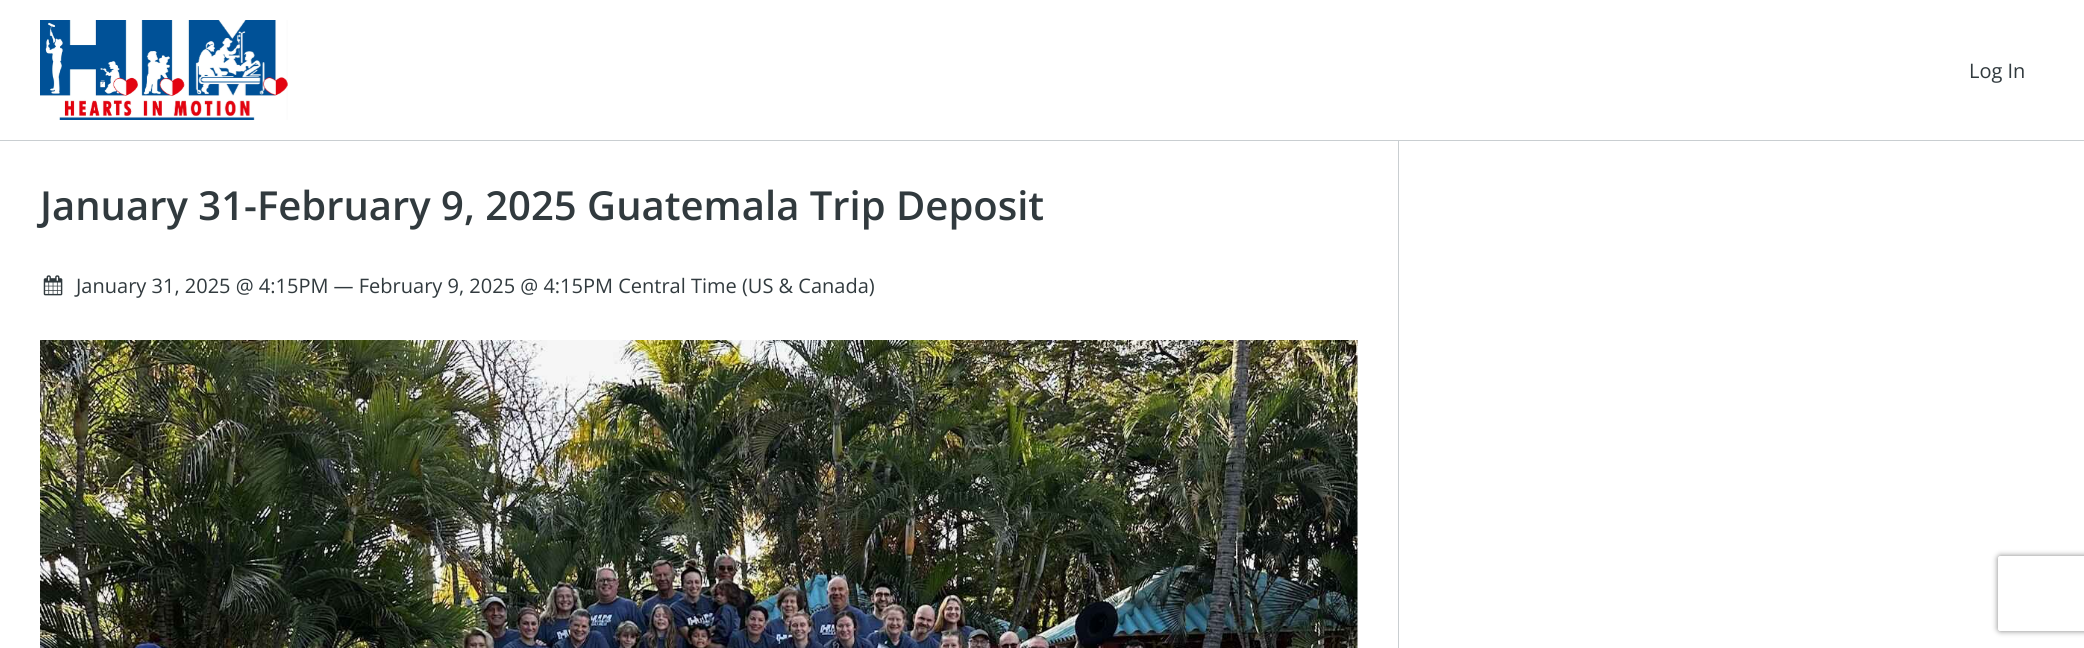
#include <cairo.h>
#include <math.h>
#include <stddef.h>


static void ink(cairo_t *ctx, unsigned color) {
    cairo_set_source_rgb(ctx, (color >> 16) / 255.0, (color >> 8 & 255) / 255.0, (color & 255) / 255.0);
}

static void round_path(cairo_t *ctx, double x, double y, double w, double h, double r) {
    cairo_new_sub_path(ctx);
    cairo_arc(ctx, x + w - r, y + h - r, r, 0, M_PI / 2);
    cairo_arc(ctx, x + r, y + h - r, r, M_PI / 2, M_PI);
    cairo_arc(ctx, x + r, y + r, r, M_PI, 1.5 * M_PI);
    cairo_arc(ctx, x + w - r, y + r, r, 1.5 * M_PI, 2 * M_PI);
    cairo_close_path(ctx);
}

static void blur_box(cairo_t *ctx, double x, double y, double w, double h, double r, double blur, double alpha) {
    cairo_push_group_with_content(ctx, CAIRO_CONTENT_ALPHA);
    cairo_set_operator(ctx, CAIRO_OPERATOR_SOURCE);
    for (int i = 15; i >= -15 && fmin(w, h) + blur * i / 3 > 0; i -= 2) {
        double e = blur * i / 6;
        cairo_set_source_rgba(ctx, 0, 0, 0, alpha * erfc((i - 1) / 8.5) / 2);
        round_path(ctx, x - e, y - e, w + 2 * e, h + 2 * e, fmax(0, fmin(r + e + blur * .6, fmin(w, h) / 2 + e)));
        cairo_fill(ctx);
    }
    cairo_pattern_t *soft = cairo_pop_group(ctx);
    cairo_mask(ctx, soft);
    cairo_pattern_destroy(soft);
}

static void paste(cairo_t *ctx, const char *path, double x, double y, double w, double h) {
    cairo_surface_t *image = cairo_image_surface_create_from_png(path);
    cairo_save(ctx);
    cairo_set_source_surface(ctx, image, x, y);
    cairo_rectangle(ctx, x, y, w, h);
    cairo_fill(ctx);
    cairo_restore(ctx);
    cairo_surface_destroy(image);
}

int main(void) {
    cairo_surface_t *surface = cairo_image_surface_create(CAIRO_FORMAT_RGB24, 2084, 648);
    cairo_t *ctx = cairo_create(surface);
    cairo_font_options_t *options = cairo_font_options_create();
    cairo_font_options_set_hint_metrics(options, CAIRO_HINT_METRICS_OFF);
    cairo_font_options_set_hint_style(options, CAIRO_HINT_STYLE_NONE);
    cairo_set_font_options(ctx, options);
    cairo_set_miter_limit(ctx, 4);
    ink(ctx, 0xFFFFFF);
    cairo_paint(ctx);
    ink(ctx, 0xC9CED1);
    cairo_rectangle(ctx, 1398, 140, 1, 508);
    cairo_fill(ctx);
    cairo_rectangle(ctx, 0, 140, 2084, 1);
    cairo_fill(ctx);
    paste(ctx, "media/1.png", 40, 20, 248, 100);
    cairo_select_font_face(ctx, "Open Sans", CAIRO_FONT_SLANT_NORMAL, CAIRO_FONT_WEIGHT_NORMAL);
    cairo_set_font_size(ctx, 20);
    ink(ctx, 0x313A3E);
    cairo_move_to(ctx, 1969, 78);
    cairo_show_text(ctx, "Log In");
    cairo_select_font_face(ctx, "Open Sans SemiBold", CAIRO_FONT_SLANT_NORMAL, CAIRO_FONT_WEIGHT_NORMAL);
    cairo_set_font_size(ctx, 40);
    cairo_move_to(ctx, 40, 220);
    cairo_show_text(ctx, "January 31-February 9, 2025 Guatemala Trip Deposit");
    paste(ctx, "media/2.png", 43, 275, 20, 21);
    cairo_select_font_face(ctx, "Open Sans", CAIRO_FONT_SLANT_NORMAL, CAIRO_FONT_WEIGHT_NORMAL);
    cairo_set_font_size(ctx, 20);
    cairo_move_to(ctx, 76, 293);
    cairo_show_text(ctx, "January 31, 2025 @ 4:15PM — February 9, 2025 @ 4:15PM Central Time (US & Canada)");
    paste(ctx, "media/3.png", 40, 340, 1318, 308);
    cairo_save(ctx);
    cairo_set_fill_rule(ctx, CAIRO_FILL_RULE_EVEN_ODD);
    cairo_new_path(ctx);
    cairo_move_to(ctx, 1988, 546);
    cairo_line_to(ctx, 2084, 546);
    cairo_line_to(ctx, 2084, 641);
    cairo_line_to(ctx, 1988, 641);
    cairo_close_path(ctx);
    cairo_move_to(ctx, 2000.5, 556);
    cairo_line_to(ctx, 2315.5, 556);
    cairo_curve_to(ctx, 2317, 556, 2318, 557, 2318, 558.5);
    cairo_line_to(ctx, 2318, 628.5);
    cairo_curve_to(ctx, 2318, 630, 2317, 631, 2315.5, 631);
    cairo_line_to(ctx, 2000.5, 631);
    cairo_curve_to(ctx, 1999, 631, 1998, 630, 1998, 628.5);
    cairo_line_to(ctx, 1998, 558.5);
    cairo_curve_to(ctx, 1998, 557, 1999, 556, 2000.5, 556);
    cairo_close_path(ctx);
    cairo_clip(ctx);
    ink(ctx, 0x808080);
    blur_box(ctx, 1998, 556, 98, 75, 2.5, 3, 1);
    cairo_restore(ctx);
    cairo_surface_write_to_png(surface, "image.png");
    cairo_font_options_destroy(options);
    cairo_destroy(ctx);
    cairo_surface_destroy(surface);
    return 0;
}
